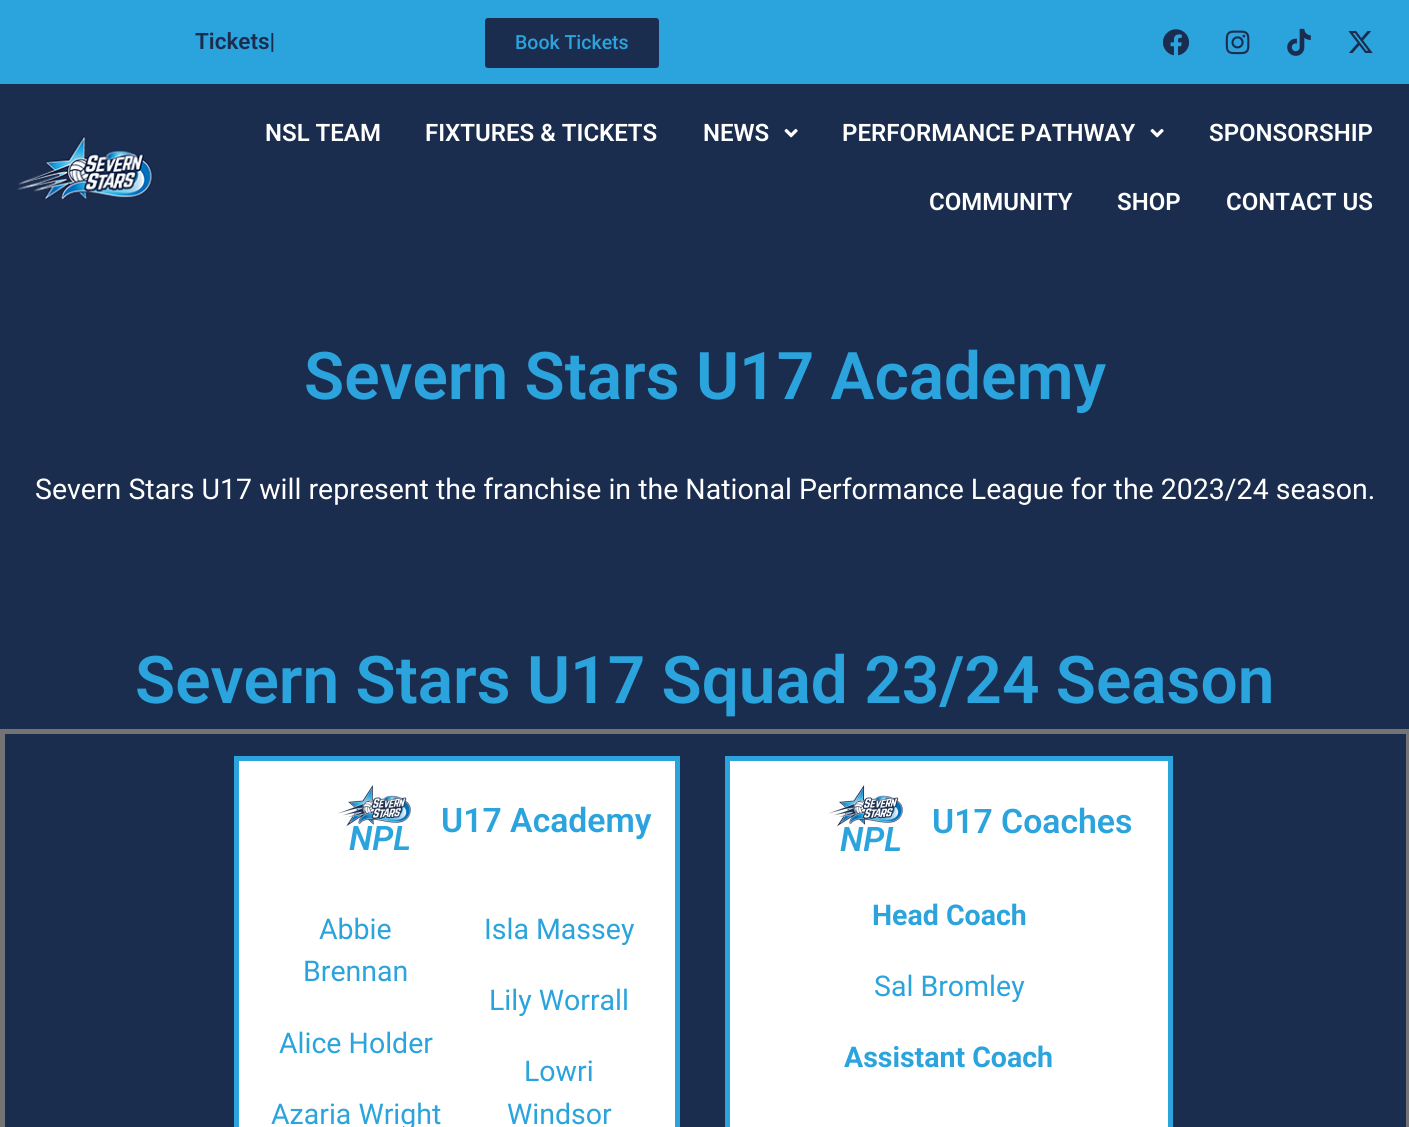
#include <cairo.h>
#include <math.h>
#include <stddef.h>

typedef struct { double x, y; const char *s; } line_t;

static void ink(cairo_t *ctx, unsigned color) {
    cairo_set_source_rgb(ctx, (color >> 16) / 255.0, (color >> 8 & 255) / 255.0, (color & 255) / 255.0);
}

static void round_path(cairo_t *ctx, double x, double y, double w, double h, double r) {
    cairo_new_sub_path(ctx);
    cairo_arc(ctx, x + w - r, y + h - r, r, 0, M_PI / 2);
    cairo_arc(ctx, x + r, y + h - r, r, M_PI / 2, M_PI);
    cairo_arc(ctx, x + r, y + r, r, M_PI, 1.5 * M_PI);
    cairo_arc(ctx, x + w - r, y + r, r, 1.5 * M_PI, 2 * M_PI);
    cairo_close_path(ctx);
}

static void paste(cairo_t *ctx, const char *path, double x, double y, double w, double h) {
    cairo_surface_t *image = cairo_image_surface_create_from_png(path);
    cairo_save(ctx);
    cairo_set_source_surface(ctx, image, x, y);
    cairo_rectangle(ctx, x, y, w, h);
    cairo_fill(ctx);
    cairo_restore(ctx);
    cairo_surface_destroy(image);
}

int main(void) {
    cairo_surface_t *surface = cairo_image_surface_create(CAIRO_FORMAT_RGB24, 1409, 1127);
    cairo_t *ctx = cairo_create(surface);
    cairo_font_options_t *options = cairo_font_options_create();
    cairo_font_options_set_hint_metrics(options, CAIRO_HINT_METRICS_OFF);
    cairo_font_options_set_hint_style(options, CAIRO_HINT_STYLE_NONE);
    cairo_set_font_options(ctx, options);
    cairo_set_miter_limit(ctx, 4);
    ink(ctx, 0x1B2D4E);
    cairo_paint(ctx);
    ink(ctx, 0x2BA3DD);
    cairo_rectangle(ctx, 0, 0, 1409, 84);
    cairo_fill(ctx);
    cairo_select_font_face(ctx, "Roboto SemiBold", CAIRO_FONT_SLANT_NORMAL, CAIRO_FONT_WEIGHT_NORMAL);
    cairo_set_font_size(ctx, 22.5);
    ink(ctx, 0x1B2D4E);
    cairo_move_to(ctx, 195, 49);
    cairo_show_text(ctx, "Tickets|");
    round_path(ctx, 485, 18, 174, 50, 3);
    cairo_fill(ctx);
    cairo_select_font_face(ctx, "Roboto Medium", CAIRO_FONT_SLANT_NORMAL, CAIRO_FONT_WEIGHT_NORMAL);
    cairo_set_font_size(ctx, 19.5);
    ink(ctx, 0x2BA3DD);
    cairo_move_to(ctx, 515, 49);
    cairo_show_text(ctx, "Book Tickets");
    paste(ctx, "media/1.png", 1162, 29, 28, 27);
    paste(ctx, "media/2.png", 1225, 30, 25, 25);
    paste(ctx, "media/3.png", 1287, 28, 24, 28);
    paste(ctx, "media/4.png", 1348, 31, 25, 22);
    paste(ctx, "media/5.png", 17, 136, 136, 65);
    cairo_select_font_face(ctx, "Roboto SemiBold", CAIRO_FONT_SLANT_NORMAL, CAIRO_FONT_WEIGHT_NORMAL);
    cairo_set_font_size(ctx, 24);
    ink(ctx, 0xFFFFFF);
    {
        static const line_t items[] = {
            {265, 141, "NSL TEAM"},
            {425, 141, "FIXTURES & TICKETS"},
            {703, 141, "NEWS"},
        };
        for (size_t i = 0; i < sizeof items / sizeof *items; i++) {
            cairo_move_to(ctx, items[i].x, items[i].y);
            cairo_show_text(ctx, items[i].s);
        }
    }
    paste(ctx, "media/6.png", 784, 128, 14, 10);
    cairo_move_to(ctx, 842, 141);
    cairo_show_text(ctx, "PERFORMANCE PATHWAY");
    paste(ctx, "media/6.png", 1150, 128, 14, 10);
    {
        static const line_t items[] = {
            {1209, 141, "SPONSORSHIP"},
            {929, 210, "COMMUNITY"},
            {1117, 210, "SHOP"},
            {1226, 210, "CONTACT US"},
        };
        for (size_t i = 0; i < sizeof items / sizeof *items; i++) {
            cairo_move_to(ctx, items[i].x, items[i].y);
            cairo_show_text(ctx, items[i].s);
        }
    }
    cairo_set_font_size(ctx, 65.75);
    ink(ctx, 0x2BA3DD);
    cairo_move_to(ctx, 304, 399);
    cairo_show_text(ctx, "Severn Stars U17 Academy");
    cairo_select_font_face(ctx, "Roboto", CAIRO_FONT_SLANT_NORMAL, CAIRO_FONT_WEIGHT_NORMAL);
    cairo_set_font_size(ctx, 28.5);
    ink(ctx, 0xFFFFFF);
    cairo_move_to(ctx, 35, 499);
    cairo_show_text(ctx, "Severn Stars U17 will represent the franchise in the National Performance League for the 2023/24 season.");
    cairo_select_font_face(ctx, "Roboto SemiBold", CAIRO_FONT_SLANT_NORMAL, CAIRO_FONT_WEIGHT_NORMAL);
    cairo_set_font_size(ctx, 65.75);
    ink(ctx, 0x2BA3DD);
    cairo_move_to(ctx, 135, 703);
    cairo_show_text(ctx, "Severn Stars U17 Squad 23/24 Season");
    cairo_rectangle(ctx, 2.5, 731.5, 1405, 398);
    ink(ctx, 0x747474);
    cairo_set_line_width(ctx, 5);
    cairo_stroke(ctx);
    ink(ctx, 0xFFFFFF);
    cairo_rectangle(ctx, 236.5, 758.5, 441, 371);
    cairo_fill_preserve(ctx);
    ink(ctx, 0x2BA3DD);
    cairo_stroke(ctx);
    paste(ctx, "media/7.png", 338, 785, 73, 42);
    cairo_select_font_face(ctx, "Roboto SemiBold", CAIRO_FONT_SLANT_ITALIC, CAIRO_FONT_WEIGHT_NORMAL);
    cairo_set_font_size(ctx, 33.75);
    cairo_move_to(ctx, 349, 850);
    cairo_show_text(ctx, "NPL");
    cairo_select_font_face(ctx, "Roboto SemiBold", CAIRO_FONT_SLANT_NORMAL, CAIRO_FONT_WEIGHT_NORMAL);
    cairo_move_to(ctx, 441, 832);
    cairo_show_text(ctx, "U17 Academy");
    cairo_select_font_face(ctx, "Roboto", CAIRO_FONT_SLANT_NORMAL, CAIRO_FONT_WEIGHT_NORMAL);
    cairo_set_font_size(ctx, 28.5);
    {
        static const line_t items[] = {
            {319, 939, "Abbie"},
            {303, 981, "Brennan"},
            {279, 1053, "Alice Holder"},
            {271, 1124, "Azaria Wright"},
            {484, 939, "Isla Massey"},
            {489, 1010, "Lily Worrall"},
            {524, 1081, "Lowri"},
            {507, 1124, "Windsor"},
        };
        for (size_t i = 0; i < sizeof items / sizeof *items; i++) {
            cairo_move_to(ctx, items[i].x, items[i].y);
            cairo_show_text(ctx, items[i].s);
        }
    }
    ink(ctx, 0xFFFFFF);
    cairo_rectangle(ctx, 727.5, 758.5, 443, 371);
    cairo_fill_preserve(ctx);
    ink(ctx, 0x2BA3DD);
    cairo_stroke(ctx);
    cairo_select_font_face(ctx, "Roboto SemiBold", CAIRO_FONT_SLANT_NORMAL, CAIRO_FONT_WEIGHT_NORMAL);
    cairo_set_font_size(ctx, 33.75);
    cairo_move_to(ctx, 932, 833);
    cairo_show_text(ctx, "U17 Coaches");
    paste(ctx, "media/8.png", 828, 785, 75, 42);
    cairo_select_font_face(ctx, "Roboto SemiBold", CAIRO_FONT_SLANT_ITALIC, CAIRO_FONT_WEIGHT_NORMAL);
    cairo_move_to(ctx, 840, 851);
    cairo_show_text(ctx, "NPL");
    cairo_select_font_face(ctx, "Roboto", CAIRO_FONT_SLANT_NORMAL, CAIRO_FONT_WEIGHT_BOLD);
    cairo_set_font_size(ctx, 28.5);
    cairo_move_to(ctx, 872, 925);
    cairo_show_text(ctx, "Head Coach");
    cairo_select_font_face(ctx, "Roboto", CAIRO_FONT_SLANT_NORMAL, CAIRO_FONT_WEIGHT_NORMAL);
    cairo_move_to(ctx, 874, 996);
    cairo_show_text(ctx, "Sal Bromley");
    cairo_select_font_face(ctx, "Roboto", CAIRO_FONT_SLANT_NORMAL, CAIRO_FONT_WEIGHT_BOLD);
    cairo_move_to(ctx, 844, 1067);
    cairo_show_text(ctx, "Assistant Coach");
    ink(ctx, 0x1B2D4E);
    cairo_rectangle(ctx, 1405, 734, 1, 393);
    cairo_fill(ctx);
    cairo_surface_write_to_png(surface, "image.png");
    cairo_font_options_destroy(options);
    cairo_destroy(ctx);
    cairo_surface_destroy(surface);
    return 0;
}
